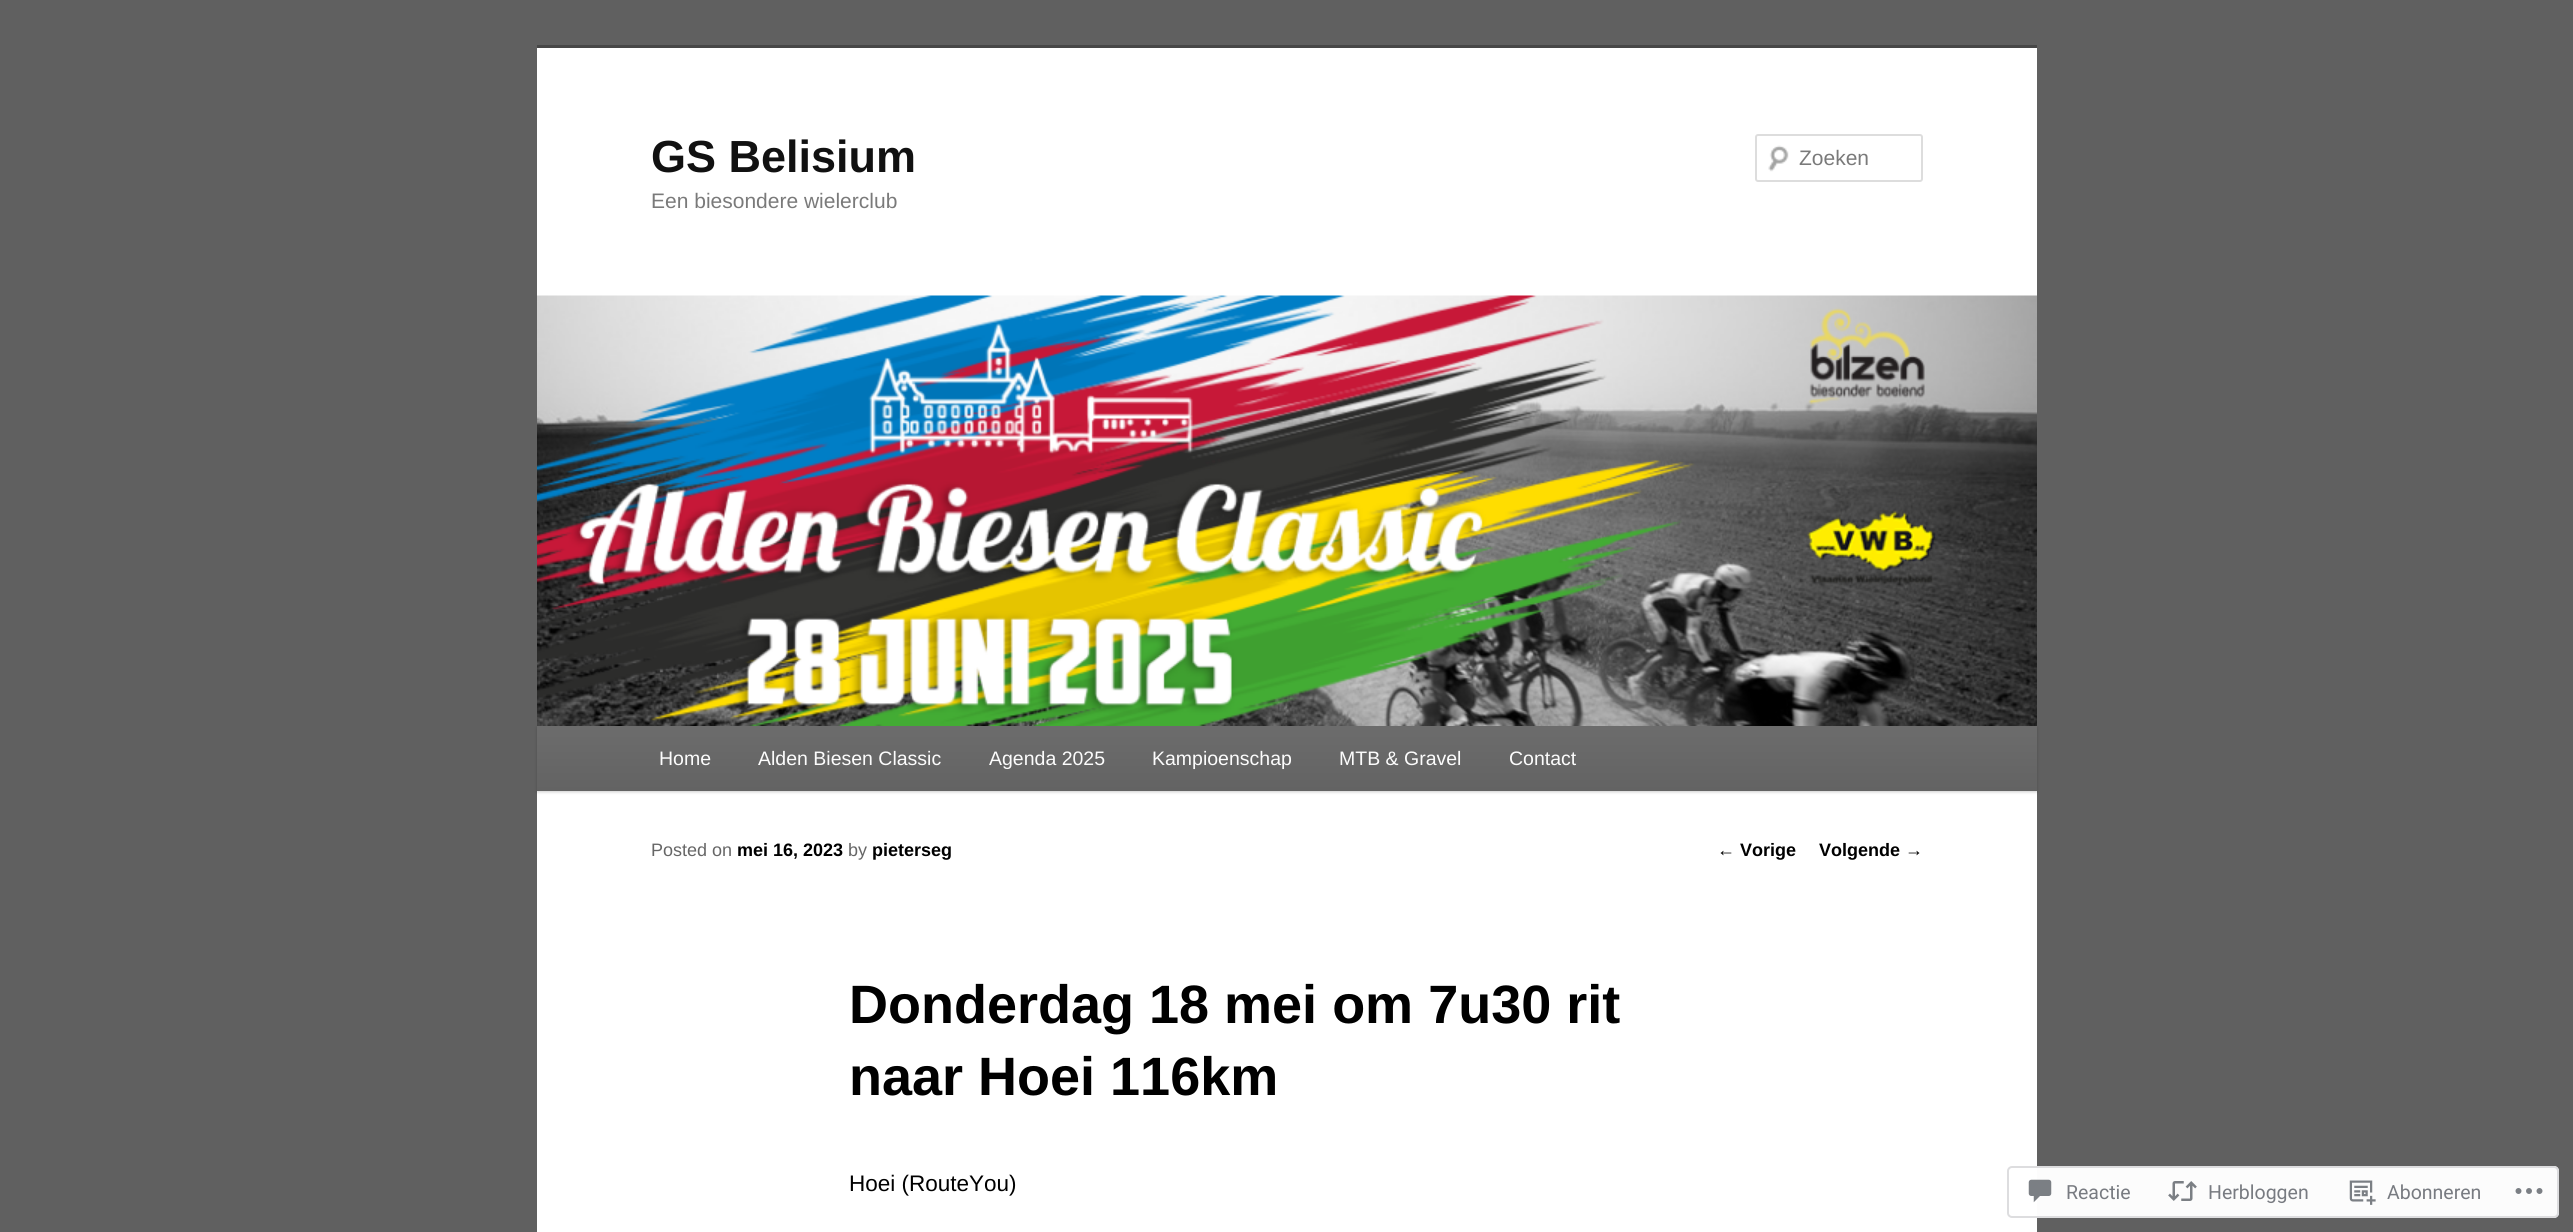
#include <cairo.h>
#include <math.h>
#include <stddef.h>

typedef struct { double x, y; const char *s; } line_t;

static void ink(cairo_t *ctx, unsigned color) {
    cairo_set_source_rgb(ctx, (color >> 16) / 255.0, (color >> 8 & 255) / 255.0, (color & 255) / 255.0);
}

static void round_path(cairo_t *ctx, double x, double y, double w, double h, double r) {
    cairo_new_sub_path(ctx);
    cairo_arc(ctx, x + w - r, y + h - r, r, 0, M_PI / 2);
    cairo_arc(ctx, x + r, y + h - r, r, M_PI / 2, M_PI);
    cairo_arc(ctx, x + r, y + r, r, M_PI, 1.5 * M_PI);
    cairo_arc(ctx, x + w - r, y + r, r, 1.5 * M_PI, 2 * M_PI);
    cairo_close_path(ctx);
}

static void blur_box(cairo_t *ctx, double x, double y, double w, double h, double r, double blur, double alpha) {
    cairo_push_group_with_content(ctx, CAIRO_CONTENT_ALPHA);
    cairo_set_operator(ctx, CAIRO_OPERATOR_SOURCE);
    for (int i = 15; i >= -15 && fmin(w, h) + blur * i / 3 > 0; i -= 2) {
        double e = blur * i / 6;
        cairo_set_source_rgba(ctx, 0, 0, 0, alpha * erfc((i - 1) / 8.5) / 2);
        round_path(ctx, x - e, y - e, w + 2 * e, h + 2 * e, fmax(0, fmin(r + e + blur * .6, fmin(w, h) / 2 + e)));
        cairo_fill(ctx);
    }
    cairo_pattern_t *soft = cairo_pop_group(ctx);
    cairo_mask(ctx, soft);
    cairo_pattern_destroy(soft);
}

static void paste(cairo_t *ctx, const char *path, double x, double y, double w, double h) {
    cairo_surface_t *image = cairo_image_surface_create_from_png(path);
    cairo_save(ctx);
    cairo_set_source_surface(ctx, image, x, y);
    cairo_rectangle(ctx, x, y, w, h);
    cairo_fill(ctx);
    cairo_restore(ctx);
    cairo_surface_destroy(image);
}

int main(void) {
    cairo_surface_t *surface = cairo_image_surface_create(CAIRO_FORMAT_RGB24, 2573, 1232);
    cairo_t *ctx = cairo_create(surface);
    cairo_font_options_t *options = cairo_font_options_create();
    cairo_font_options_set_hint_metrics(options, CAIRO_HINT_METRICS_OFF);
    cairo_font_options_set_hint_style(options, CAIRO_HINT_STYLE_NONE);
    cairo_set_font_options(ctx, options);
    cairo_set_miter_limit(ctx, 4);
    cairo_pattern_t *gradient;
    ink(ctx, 0x606060);
    cairo_paint(ctx);
    ink(ctx, 0xFFFFFF);
    cairo_rectangle(ctx, 537, 48, 1500, 1184);
    cairo_fill(ctx);
    ink(ctx, 0x474747);
    cairo_rectangle(ctx, 537, 45, 1500, 3);
    cairo_fill(ctx);
    cairo_select_font_face(ctx, "Liberation Sans", CAIRO_FONT_SLANT_NORMAL, CAIRO_FONT_WEIGHT_BOLD);
    cairo_set_font_size(ctx, 45);
    ink(ctx, 0x111111);
    cairo_move_to(ctx, 651, 172);
    cairo_show_text(ctx, "GS Belisium");
    cairo_select_font_face(ctx, "Liberation Sans", CAIRO_FONT_SLANT_NORMAL, CAIRO_FONT_WEIGHT_NORMAL);
    cairo_set_font_size(ctx, 21);
    ink(ctx, 0x7A7A7A);
    cairo_move_to(ctx, 651, 208);
    cairo_show_text(ctx, "Een biesondere wielerclub");
    paste(ctx, "media/1.png", 1768, 145, 21, 27);
    round_path(ctx, 1756, 135, 166, 46, 2);
    ink(ctx, 0xDDDDDD);
    cairo_stroke(ctx);
    ink(ctx, 0x7A7A7A);
    cairo_move_to(ctx, 1799, 165);
    cairo_show_text(ctx, "Zoeken");
    ink(ctx, 0x000000);
    blur_box(ctx, 537, 728, 1500, 64, 0, 1.5, 0.2);
    paste(ctx, "media/2.png", 537, 295, 1500, 431);
    gradient = cairo_pattern_create_linear(1287, 726, 1287, 791);
    cairo_pattern_add_color_stop_rgba(gradient, 0, 0.424, 0.424, 0.424, 1);
    cairo_pattern_add_color_stop_rgba(gradient, 1, 0.388, 0.388, 0.388, 1);
    cairo_set_source(ctx, gradient);
    cairo_pattern_destroy(gradient);
    cairo_rectangle(ctx, 537, 726, 1500, 65);
    cairo_fill(ctx);
    cairo_set_font_size(ctx, 19.5);
    ink(ctx, 0xFCFCFC);
    {
        static const line_t items[] = {
            {659, 765, "Home"},
            {758, 765, "Alden Biesen Classic"},
            {989, 765, "Agenda 2025"},
            {1152, 765, "Kampioenschap"},
            {1339, 765, "MTB & Gravel"},
            {1509, 765, "Contact"},
        };
        for (size_t i = 0; i < sizeof items / sizeof *items; i++) {
            cairo_move_to(ctx, items[i].x, items[i].y);
            cairo_show_text(ctx, items[i].s);
        }
    }
    cairo_set_font_size(ctx, 18);
    ink(ctx, 0x666666);
    cairo_move_to(ctx, 651, 856);
    cairo_show_text(ctx, "Posted on");
    cairo_select_font_face(ctx, "Liberation Sans", CAIRO_FONT_SLANT_NORMAL, CAIRO_FONT_WEIGHT_BOLD);
    ink(ctx, 0x000000);
    cairo_move_to(ctx, 737, 856);
    cairo_show_text(ctx, "mei 16, 2023");
    cairo_select_font_face(ctx, "Liberation Sans", CAIRO_FONT_SLANT_NORMAL, CAIRO_FONT_WEIGHT_NORMAL);
    ink(ctx, 0x666666);
    cairo_move_to(ctx, 848, 856);
    cairo_show_text(ctx, "by");
    cairo_select_font_face(ctx, "Liberation Sans", CAIRO_FONT_SLANT_NORMAL, CAIRO_FONT_WEIGHT_BOLD);
    ink(ctx, 0x000000);
    cairo_move_to(ctx, 872, 856);
    cairo_show_text(ctx, "pieterseg");
    cairo_set_font_size(ctx, 54);
    cairo_move_to(ctx, 849, 1023);
    cairo_show_text(ctx, "Donderdag 18 mei om 7u30 rit");
    cairo_move_to(ctx, 849, 1095);
    cairo_show_text(ctx, "naar Hoei 116km");
    cairo_select_font_face(ctx, "Liberation Sans", CAIRO_FONT_SLANT_NORMAL, CAIRO_FONT_WEIGHT_NORMAL);
    cairo_set_font_size(ctx, 22.5);
    cairo_move_to(ctx, 849, 1191);
    cairo_show_text(ctx, "Hoei (RouteYou)");
    cairo_set_font_size(ctx, 18);
    cairo_move_to(ctx, 1717, 856);
    cairo_show_text(ctx, "←");
    cairo_select_font_face(ctx, "Liberation Sans", CAIRO_FONT_SLANT_NORMAL, CAIRO_FONT_WEIGHT_BOLD);
    cairo_move_to(ctx, 1740, 856);
    cairo_show_text(ctx, "Vorige");
    cairo_move_to(ctx, 1819, 856);
    cairo_show_text(ctx, "Volgende");
    cairo_select_font_face(ctx, "Liberation Sans", CAIRO_FONT_SLANT_NORMAL, CAIRO_FONT_WEIGHT_NORMAL);
    cairo_move_to(ctx, 1905, 856);
    cairo_show_text(ctx, "→");
    cairo_set_source_rgba(ctx, 1, 1, 1, 0.98);
    round_path(ctx, 2007, 1166, 552, 52, 5);
    cairo_fill(ctx);
    round_path(ctx, 2008, 1167, 550, 50, 4);
    cairo_set_source_rgba(ctx, 0.863, 0.863, 0.871, 0.98);
    cairo_stroke(ctx);
    paste(ctx, "media/3.png", 2028, 1179, 24, 24);
    cairo_select_font_face(ctx, "Roboto", CAIRO_FONT_SLANT_NORMAL, CAIRO_FONT_WEIGHT_NORMAL);
    cairo_set_font_size(ctx, 19.5);
    ink(ctx, 0x787B81);
    cairo_move_to(ctx, 2066, 1199);
    cairo_show_text(ctx, "Reactie");
    paste(ctx, "media/4.png", 2168, 1181, 29, 20);
    cairo_move_to(ctx, 2208, 1199);
    cairo_show_text(ctx, "Herbloggen");
    paste(ctx, "media/5.png", 2349, 1180, 27, 25);
    cairo_move_to(ctx, 2387, 1199);
    cairo_show_text(ctx, "Abonneren");
    paste(ctx, "media/6.png", 2515, 1188, 28, 6);
    cairo_surface_write_to_png(surface, "image.png");
    cairo_font_options_destroy(options);
    cairo_destroy(ctx);
    cairo_surface_destroy(surface);
    return 0;
}
